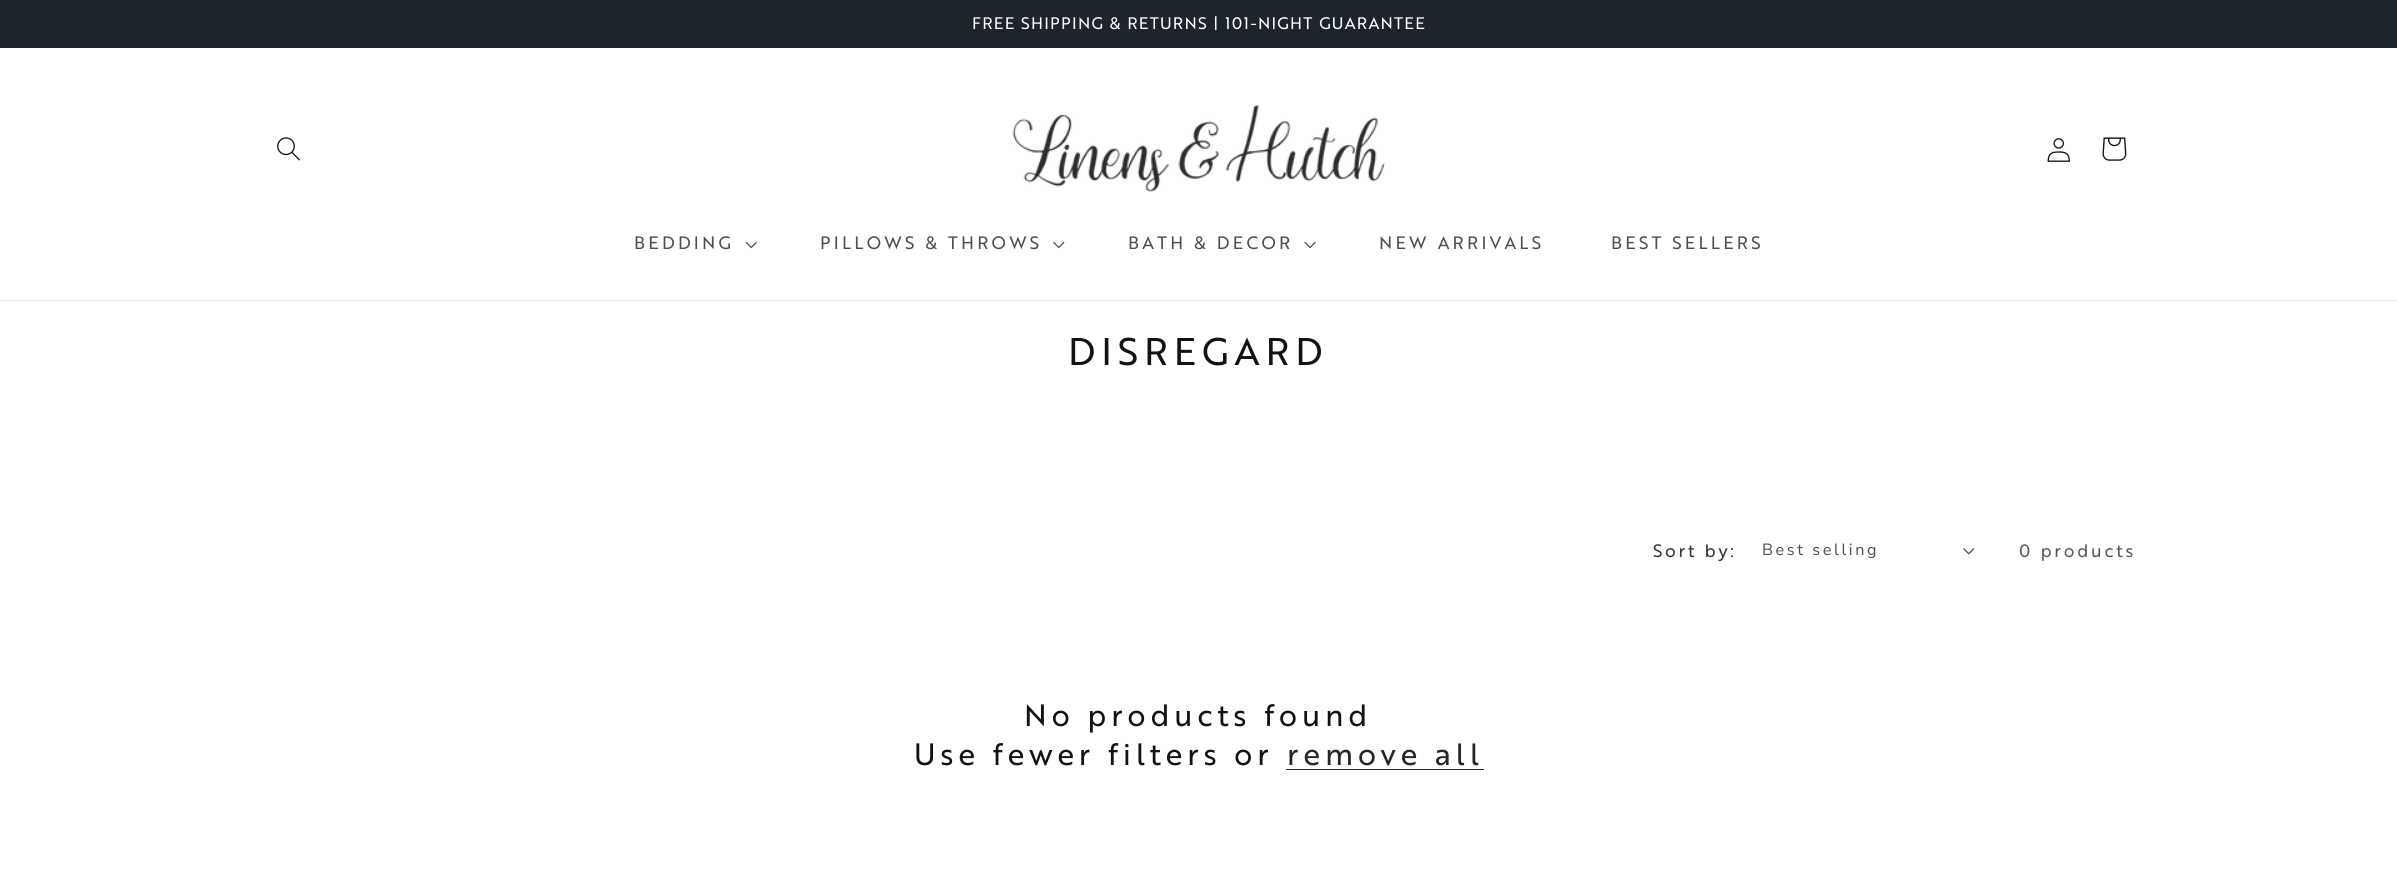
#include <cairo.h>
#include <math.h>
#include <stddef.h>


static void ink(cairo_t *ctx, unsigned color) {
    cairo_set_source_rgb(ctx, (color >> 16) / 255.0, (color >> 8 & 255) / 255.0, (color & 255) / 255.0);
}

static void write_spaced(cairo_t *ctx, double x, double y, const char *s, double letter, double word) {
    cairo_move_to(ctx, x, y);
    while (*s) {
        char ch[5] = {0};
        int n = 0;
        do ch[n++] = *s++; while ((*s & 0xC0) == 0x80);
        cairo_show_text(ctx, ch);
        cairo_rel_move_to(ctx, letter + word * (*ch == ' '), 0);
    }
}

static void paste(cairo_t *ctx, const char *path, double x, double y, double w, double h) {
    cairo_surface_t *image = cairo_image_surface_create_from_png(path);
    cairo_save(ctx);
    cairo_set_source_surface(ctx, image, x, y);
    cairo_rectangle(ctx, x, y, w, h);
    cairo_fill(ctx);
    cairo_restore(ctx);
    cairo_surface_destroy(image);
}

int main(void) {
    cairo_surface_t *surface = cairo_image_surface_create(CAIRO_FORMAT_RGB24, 2397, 877);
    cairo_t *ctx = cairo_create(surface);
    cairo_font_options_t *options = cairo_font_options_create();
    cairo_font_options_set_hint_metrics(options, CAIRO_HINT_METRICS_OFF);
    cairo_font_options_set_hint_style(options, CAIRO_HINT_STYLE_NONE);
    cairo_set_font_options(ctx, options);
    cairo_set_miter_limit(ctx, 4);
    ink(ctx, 0xFFFFFF);
    cairo_paint(ctx);
    ink(ctx, 0x1D242B);
    cairo_rectangle(ctx, 0, 0, 2397, 48);
    cairo_fill(ctx);
    cairo_select_font_face(ctx, "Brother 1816", CAIRO_FONT_SLANT_NORMAL, CAIRO_FONT_WEIGHT_NORMAL);
    cairo_set_font_size(ctx, 16.25);
    ink(ctx, 0xFFFFFF);
    write_spaced(ctx, 972, 29, "FREE SHIPPING & RETURNS | 101-NIGHT GUARANTEE", 1.25, 0);
    ink(ctx, 0xECECEC);
    cairo_rectangle(ctx, 0, 300, 2397, 1);
    cairo_fill(ctx);
    paste(ctx, "media/1.png", 277, 137, 23, 24);
    paste(ctx, "media/2.png", 1012, 104, 373, 88);
    paste(ctx, "media/3.png", 2047, 138, 23, 24);
    paste(ctx, "media/4.png", 2102, 137, 25, 24);
    cairo_set_font_size(ctx, 17.5);
    ink(ctx, 0x4D4D4D);
    write_spaced(ctx, 634, 249, "BEDDING", 3.25, 0);
    paste(ctx, "media/5.png", 745, 241, 12, 8);
    write_spaced(ctx, 820, 249, "PILLOWS & THROWS", 3.25, 0);
    paste(ctx, "media/6.png", 1053, 241, 12, 8);
    write_spaced(ctx, 1128, 249, "BATH & DECOR", 3.25, 0);
    paste(ctx, "media/7.png", 1304, 242, 12, 6);
    write_spaced(ctx, 1379, 249, "NEW ARRIVALS", 3.25, 0);
    write_spaced(ctx, 1611, 249, "BEST SELLERS", 3.25, 0);
    cairo_set_font_size(ctx, 37.5);
    ink(ctx, 0x121212);
    write_spaced(ctx, 1068, 365, "DISREGARD", 6, 0);
    cairo_set_font_size(ctx, 17.5);
    ink(ctx, 0x363636);
    write_spaced(ctx, 1653, 557, "Sort by:", 2.75, 0);
    cairo_select_font_face(ctx, "Nunito Sans", CAIRO_FONT_SLANT_NORMAL, CAIRO_FONT_WEIGHT_NORMAL);
    cairo_set_font_size(ctx, 16.25);
    ink(ctx, 0x4D4D4D);
    write_spaced(ctx, 1762, 555, "Best selling", 2.6, 0);
    paste(ctx, "media/8.png", 1963, 548, 12, 7);
    cairo_select_font_face(ctx, "Brother 1816", CAIRO_FONT_SLANT_NORMAL, CAIRO_FONT_WEIGHT_NORMAL);
    cairo_set_font_size(ctx, 17.5);
    ink(ctx, 0x595959);
    write_spaced(ctx, 2019, 557, "0 products", 2.75, 0);
    cairo_set_font_size(ctx, 30);
    ink(ctx, 0x121212);
    write_spaced(ctx, 1024, 726, "No products found", 4.75, 0);
    write_spaced(ctx, 914, 765, "Use fewer filters or", 4.75, 0);
    ink(ctx, 0x262626);
    write_spaced(ctx, 1287, 765, "remove all", 4.75, 0);
    cairo_rectangle(ctx, 1286, 769, 198, 1);
    cairo_fill(ctx);
    cairo_surface_write_to_png(surface, "image.png");
    cairo_font_options_destroy(options);
    cairo_destroy(ctx);
    cairo_surface_destroy(surface);
    return 0;
}
